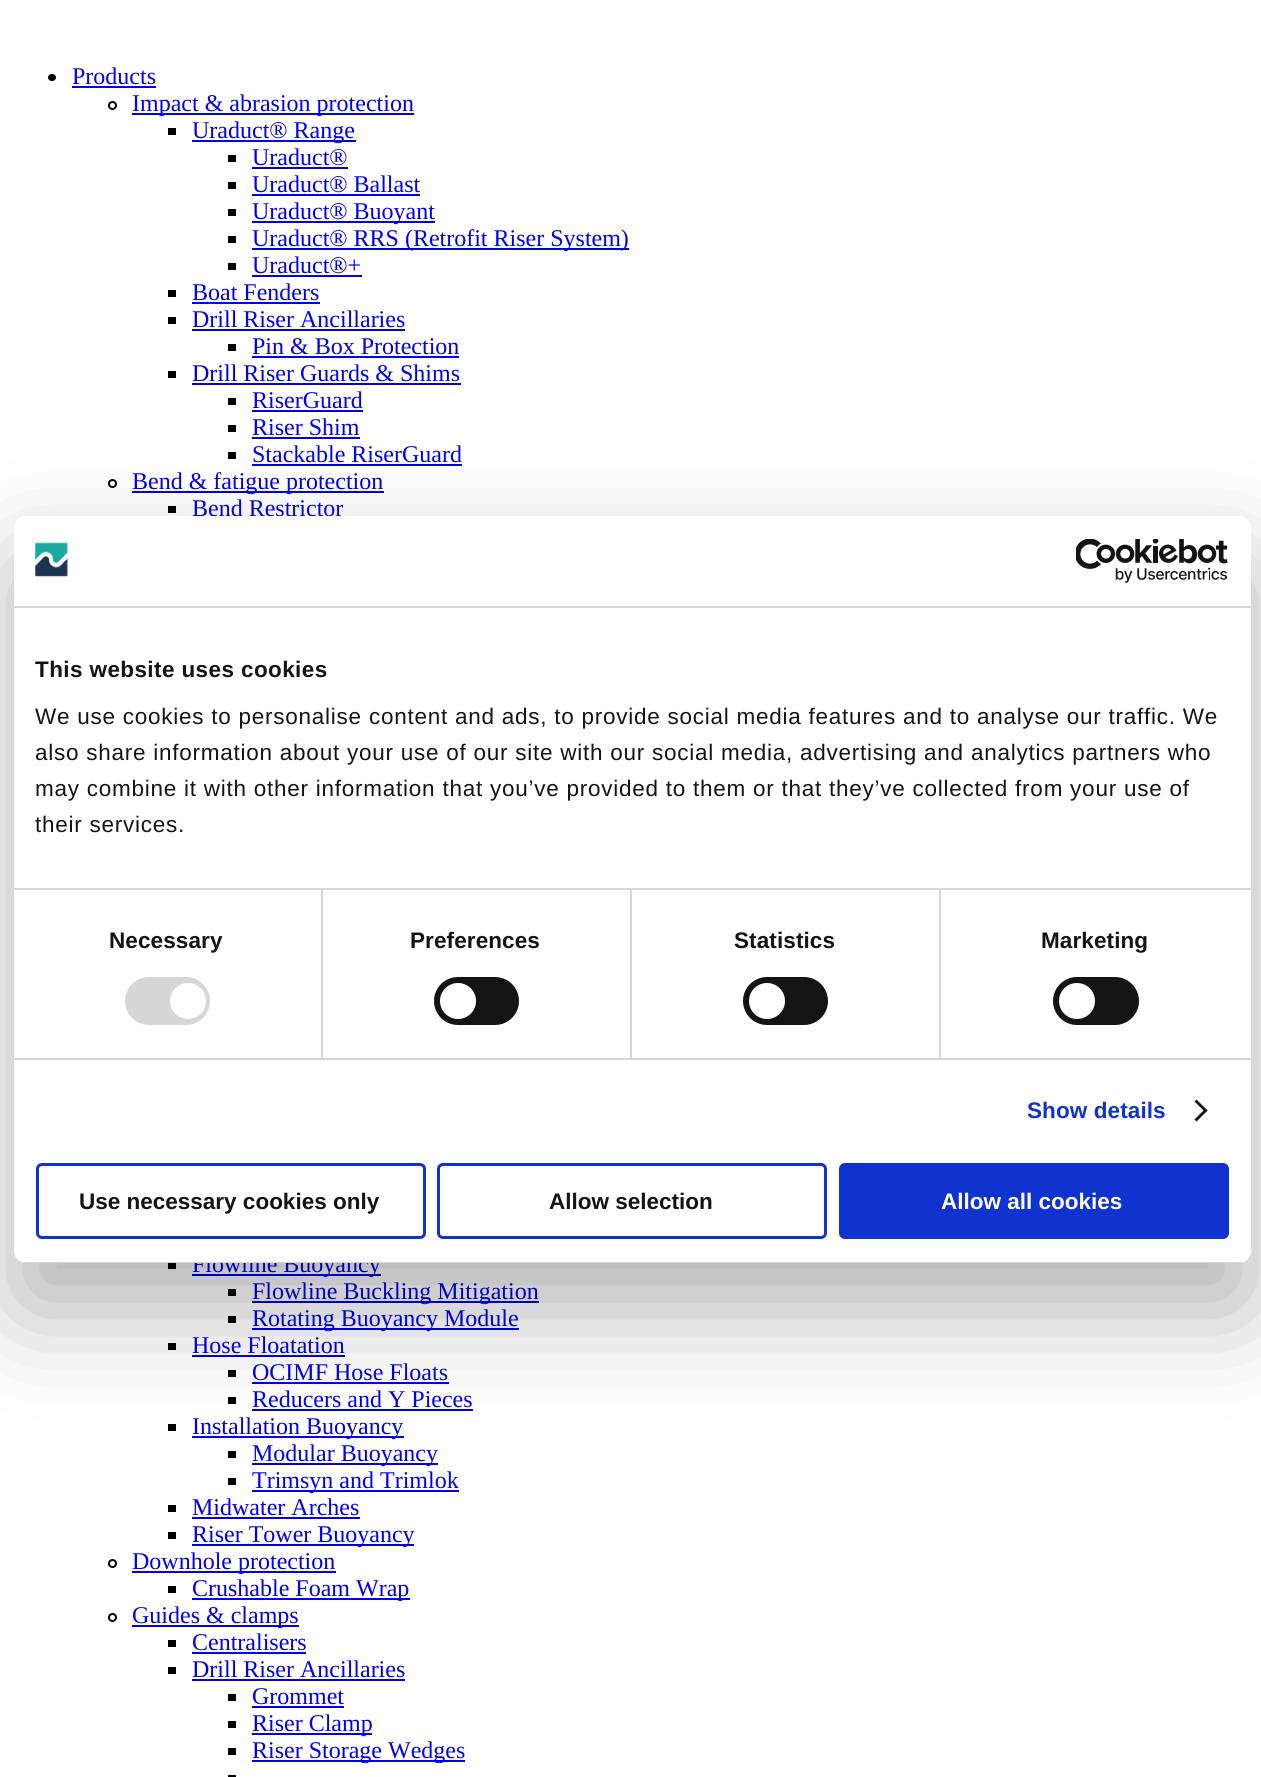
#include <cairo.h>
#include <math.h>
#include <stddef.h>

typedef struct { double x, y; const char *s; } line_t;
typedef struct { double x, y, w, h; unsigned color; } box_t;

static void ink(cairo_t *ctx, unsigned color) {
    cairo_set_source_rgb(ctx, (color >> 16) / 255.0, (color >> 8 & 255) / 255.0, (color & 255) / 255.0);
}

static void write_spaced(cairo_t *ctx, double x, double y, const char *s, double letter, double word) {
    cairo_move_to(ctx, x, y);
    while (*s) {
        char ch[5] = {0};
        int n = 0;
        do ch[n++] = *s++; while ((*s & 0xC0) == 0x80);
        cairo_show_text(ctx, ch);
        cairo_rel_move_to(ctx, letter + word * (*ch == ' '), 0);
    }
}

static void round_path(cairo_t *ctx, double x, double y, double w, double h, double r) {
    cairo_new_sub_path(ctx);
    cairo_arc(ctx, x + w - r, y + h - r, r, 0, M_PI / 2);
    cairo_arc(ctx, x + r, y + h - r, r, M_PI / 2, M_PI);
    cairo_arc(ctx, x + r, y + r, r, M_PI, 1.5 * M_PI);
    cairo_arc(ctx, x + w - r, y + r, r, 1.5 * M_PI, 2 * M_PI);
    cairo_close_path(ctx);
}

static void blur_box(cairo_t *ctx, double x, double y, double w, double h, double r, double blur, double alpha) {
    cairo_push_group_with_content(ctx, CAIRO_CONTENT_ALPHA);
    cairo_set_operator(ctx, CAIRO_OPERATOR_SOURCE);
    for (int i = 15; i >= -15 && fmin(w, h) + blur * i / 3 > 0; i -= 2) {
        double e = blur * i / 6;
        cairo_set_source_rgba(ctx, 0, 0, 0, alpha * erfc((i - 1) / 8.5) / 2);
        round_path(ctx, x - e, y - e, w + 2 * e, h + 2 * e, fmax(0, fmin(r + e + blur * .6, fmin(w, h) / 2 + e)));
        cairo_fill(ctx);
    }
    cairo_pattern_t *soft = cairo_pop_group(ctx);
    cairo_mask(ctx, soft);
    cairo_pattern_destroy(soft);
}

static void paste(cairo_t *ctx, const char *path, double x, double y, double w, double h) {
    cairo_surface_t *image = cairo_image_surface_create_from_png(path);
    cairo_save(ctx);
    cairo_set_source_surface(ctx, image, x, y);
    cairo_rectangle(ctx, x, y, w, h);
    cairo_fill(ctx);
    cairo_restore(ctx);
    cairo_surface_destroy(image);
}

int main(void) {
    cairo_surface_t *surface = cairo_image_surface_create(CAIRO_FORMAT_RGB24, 1261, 1777);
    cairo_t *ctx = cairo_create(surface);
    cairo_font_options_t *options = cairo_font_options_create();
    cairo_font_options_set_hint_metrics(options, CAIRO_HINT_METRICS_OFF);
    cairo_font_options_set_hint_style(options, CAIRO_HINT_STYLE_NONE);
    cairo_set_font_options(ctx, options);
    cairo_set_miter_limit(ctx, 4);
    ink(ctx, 0xFFFFFF);
    cairo_paint(ctx);
    ink(ctx, 0x000000);
    round_path(ctx, 48, 74, 8, 7, 3.5);
    cairo_fill(ctx);
    cairo_select_font_face(ctx, "Liberation Serif", CAIRO_FONT_SLANT_NORMAL, CAIRO_FONT_WEIGHT_NORMAL);
    cairo_set_font_size(ctx, 24);
    ink(ctx, 0x0000EE);
    cairo_move_to(ctx, 72, 84);
    cairo_show_text(ctx, "Products");
    cairo_rectangle(ctx, 72, 86, 84, 2);
    cairo_fill(ctx);
    cairo_arc(ctx, 112.5, 105.5, 3.5, 0, 2 * M_PI);
    ink(ctx, 0x000000);
    cairo_stroke(ctx);
    ink(ctx, 0x0000EE);
    cairo_rectangle(ctx, 132, 113, 282, 2);
    cairo_fill(ctx);
    cairo_move_to(ctx, 132, 111);
    cairo_show_text(ctx, "Impact & abrasion protection");
    ink(ctx, 0x000000);
    cairo_rectangle(ctx, 168, 128, 8, 7);
    cairo_fill(ctx);
    ink(ctx, 0x0000EE);
    cairo_rectangle(ctx, 192, 140, 164, 2);
    cairo_fill(ctx);
    cairo_move_to(ctx, 192, 138);
    cairo_show_text(ctx, "Uraduct® Range");
    ink(ctx, 0x000000);
    cairo_rectangle(ctx, 228, 155, 8, 7);
    cairo_fill(ctx);
    ink(ctx, 0x0000EE);
    cairo_move_to(ctx, 252, 165);
    cairo_show_text(ctx, "Uraduct®");
    cairo_rectangle(ctx, 252, 167, 96, 2);
    cairo_fill(ctx);
    ink(ctx, 0x000000);
    cairo_rectangle(ctx, 228, 182, 8, 7);
    cairo_fill(ctx);
    ink(ctx, 0x0000EE);
    cairo_move_to(ctx, 252, 192);
    cairo_show_text(ctx, "Uraduct® Ballast");
    {
        static const box_t items[] = {
            {252, 194, 168, 2, 0x0000EE},
            {228, 209, 8, 7, 0x000000},
            {252, 221, 183, 2, 0x0000EE},
        };
        for (size_t i = 0; i < sizeof items / sizeof *items; i++) {
            ink(ctx, items[i].color);
            cairo_rectangle(ctx, items[i].x, items[i].y, items[i].w, items[i].h);
            cairo_fill(ctx);
        }
    }
    cairo_move_to(ctx, 252, 219);
    cairo_show_text(ctx, "Uraduct® Buoyant");
    ink(ctx, 0x000000);
    cairo_rectangle(ctx, 228, 236, 8, 7);
    cairo_fill(ctx);
    ink(ctx, 0x0000EE);
    cairo_rectangle(ctx, 252, 248, 377, 2);
    cairo_fill(ctx);
    cairo_move_to(ctx, 252, 246);
    cairo_show_text(ctx, "Uraduct® RRS (Retrofit Riser System)");
    ink(ctx, 0x000000);
    cairo_rectangle(ctx, 228, 263, 8, 7);
    cairo_fill(ctx);
    ink(ctx, 0x0000EE);
    cairo_move_to(ctx, 252, 273);
    cairo_show_text(ctx, "Uraduct®+");
    cairo_rectangle(ctx, 252, 275, 110, 2);
    cairo_fill(ctx);
    ink(ctx, 0x000000);
    cairo_rectangle(ctx, 168, 290, 8, 7);
    cairo_fill(ctx);
    ink(ctx, 0x0000EE);
    cairo_move_to(ctx, 192, 300);
    cairo_show_text(ctx, "Boat Fenders");
    cairo_rectangle(ctx, 192, 302, 128, 2);
    cairo_fill(ctx);
    ink(ctx, 0x000000);
    cairo_rectangle(ctx, 168, 317, 8, 7);
    cairo_fill(ctx);
    ink(ctx, 0x0000EE);
    cairo_move_to(ctx, 192, 327);
    cairo_show_text(ctx, "Drill Riser Ancillaries");
    cairo_rectangle(ctx, 192, 329, 213, 2);
    cairo_fill(ctx);
    ink(ctx, 0x000000);
    cairo_rectangle(ctx, 228, 344, 8, 7);
    cairo_fill(ctx);
    ink(ctx, 0x0000EE);
    cairo_move_to(ctx, 252, 354);
    cairo_show_text(ctx, "Pin & Box Protection");
    cairo_rectangle(ctx, 252, 356, 207, 2);
    cairo_fill(ctx);
    ink(ctx, 0x000000);
    cairo_rectangle(ctx, 168, 371, 8, 7);
    cairo_fill(ctx);
    ink(ctx, 0x0000EE);
    cairo_move_to(ctx, 192, 381);
    cairo_show_text(ctx, "Drill Riser Guards & Shims");
    cairo_rectangle(ctx, 192, 383, 269, 2);
    cairo_fill(ctx);
    ink(ctx, 0x000000);
    cairo_rectangle(ctx, 228, 398, 8, 7);
    cairo_fill(ctx);
    ink(ctx, 0x0000EE);
    cairo_move_to(ctx, 252, 408);
    cairo_show_text(ctx, "RiserGuard");
    cairo_rectangle(ctx, 252, 410, 111, 2);
    cairo_fill(ctx);
    ink(ctx, 0x000000);
    cairo_rectangle(ctx, 228, 425, 8, 7);
    cairo_fill(ctx);
    ink(ctx, 0x0000EE);
    cairo_move_to(ctx, 252, 435);
    cairo_show_text(ctx, "Riser Shim");
    cairo_rectangle(ctx, 252, 437, 108, 2);
    cairo_fill(ctx);
    ink(ctx, 0x000000);
    cairo_rectangle(ctx, 228, 452, 8, 7);
    cairo_fill(ctx);
    ink(ctx, 0x0000EE);
    cairo_move_to(ctx, 252, 462);
    cairo_show_text(ctx, "Stackable RiserGuard");
    cairo_rectangle(ctx, 252, 464, 210, 2);
    cairo_fill(ctx);
    cairo_arc(ctx, 112.5, 483.5, 3.5, 0, 2 * M_PI);
    ink(ctx, 0x000000);
    cairo_stroke(ctx);
    ink(ctx, 0x0000EE);
    cairo_rectangle(ctx, 132, 491, 252, 2);
    cairo_fill(ctx);
    cairo_move_to(ctx, 132, 489);
    cairo_show_text(ctx, "Bend & fatigue protection");
    ink(ctx, 0x000000);
    cairo_rectangle(ctx, 168, 506, 8, 7);
    cairo_fill(ctx);
    ink(ctx, 0x0000EE);
    cairo_move_to(ctx, 192, 516);
    cairo_show_text(ctx, "Bend Restrictor");
    ink(ctx, 0x000000);
    cairo_rectangle(ctx, 168, 1263, 8, 6);
    cairo_fill(ctx);
    ink(ctx, 0x0000EE);
    cairo_rectangle(ctx, 192, 1274, 189, 2);
    cairo_fill(ctx);
    cairo_move_to(ctx, 192, 1272);
    cairo_show_text(ctx, "Flowline Buoyancy");
    ink(ctx, 0x000000);
    cairo_rectangle(ctx, 228, 1289, 8, 7);
    cairo_fill(ctx);
    ink(ctx, 0x0000EE);
    cairo_rectangle(ctx, 252, 1301, 287, 2);
    cairo_fill(ctx);
    cairo_move_to(ctx, 252, 1299);
    cairo_show_text(ctx, "Flowline Buckling Mitigation");
    ink(ctx, 0x000000);
    cairo_rectangle(ctx, 228, 1316, 8, 7);
    cairo_fill(ctx);
    ink(ctx, 0x0000EE);
    cairo_rectangle(ctx, 252, 1328, 267, 2);
    cairo_fill(ctx);
    cairo_move_to(ctx, 252, 1326);
    cairo_show_text(ctx, "Rotating Buoyancy Module");
    ink(ctx, 0x000000);
    cairo_rectangle(ctx, 168, 1343, 8, 7);
    cairo_fill(ctx);
    ink(ctx, 0x0000EE);
    cairo_move_to(ctx, 192, 1353);
    cairo_show_text(ctx, "Hose Floatation");
    cairo_rectangle(ctx, 192, 1355, 153, 2);
    cairo_fill(ctx);
    ink(ctx, 0x000000);
    cairo_rectangle(ctx, 228, 1370, 8, 7);
    cairo_fill(ctx);
    ink(ctx, 0x0000EE);
    cairo_move_to(ctx, 252, 1380);
    cairo_show_text(ctx, "OCIMF Hose Floats");
    cairo_rectangle(ctx, 252, 1382, 197, 2);
    cairo_fill(ctx);
    ink(ctx, 0x000000);
    cairo_rectangle(ctx, 228, 1397, 8, 7);
    cairo_fill(ctx);
    ink(ctx, 0x0000EE);
    cairo_move_to(ctx, 252, 1407);
    cairo_show_text(ctx, "Reducers and Y Pieces");
    {
        static const box_t items[] = {
            {252, 1409, 221, 2, 0x0000EE},
            {168, 1424, 8, 7, 0x000000},
            {192, 1436, 212, 2, 0x0000EE},
        };
        for (size_t i = 0; i < sizeof items / sizeof *items; i++) {
            ink(ctx, items[i].color);
            cairo_rectangle(ctx, items[i].x, items[i].y, items[i].w, items[i].h);
            cairo_fill(ctx);
        }
    }
    cairo_move_to(ctx, 192, 1434);
    cairo_show_text(ctx, "Installation Buoyancy");
    ink(ctx, 0x000000);
    cairo_rectangle(ctx, 228, 1451, 8, 7);
    cairo_fill(ctx);
    ink(ctx, 0x0000EE);
    cairo_rectangle(ctx, 252, 1463, 186, 2);
    cairo_fill(ctx);
    cairo_move_to(ctx, 252, 1461);
    cairo_show_text(ctx, "Modular Buoyancy");
    ink(ctx, 0x000000);
    cairo_rectangle(ctx, 228, 1478, 8, 7);
    cairo_fill(ctx);
    ink(ctx, 0x0000EE);
    cairo_rectangle(ctx, 252, 1490, 207, 2);
    cairo_fill(ctx);
    cairo_move_to(ctx, 252, 1488);
    cairo_show_text(ctx, "Trimsyn and Trimlok");
    ink(ctx, 0x000000);
    cairo_rectangle(ctx, 168, 1505, 8, 7);
    cairo_fill(ctx);
    ink(ctx, 0x0000EE);
    cairo_move_to(ctx, 192, 1515);
    cairo_show_text(ctx, "Midwater Arches");
    {
        static const box_t items[] = {
            {192, 1517, 168, 2, 0x0000EE},
            {168, 1532, 8, 7, 0x000000},
            {192, 1544, 222, 2, 0x0000EE},
        };
        for (size_t i = 0; i < sizeof items / sizeof *items; i++) {
            ink(ctx, items[i].color);
            cairo_rectangle(ctx, items[i].x, items[i].y, items[i].w, items[i].h);
            cairo_fill(ctx);
        }
    }
    cairo_move_to(ctx, 192, 1542);
    cairo_show_text(ctx, "Riser Tower Buoyancy");
    cairo_new_path(ctx);
    cairo_arc(ctx, 112.5, 1563.5, 3.5, 0, 2 * M_PI);
    ink(ctx, 0x000000);
    cairo_stroke(ctx);
    ink(ctx, 0x0000EE);
    cairo_rectangle(ctx, 132, 1571, 204, 2);
    cairo_fill(ctx);
    cairo_move_to(ctx, 132, 1569);
    cairo_show_text(ctx, "Downhole protection");
    ink(ctx, 0x000000);
    cairo_rectangle(ctx, 168, 1586, 8, 7);
    cairo_fill(ctx);
    ink(ctx, 0x0000EE);
    cairo_rectangle(ctx, 192, 1598, 218, 2);
    cairo_fill(ctx);
    cairo_move_to(ctx, 192, 1596);
    cairo_show_text(ctx, "Crushable Foam Wrap");
    cairo_new_path(ctx);
    cairo_arc(ctx, 112.5, 1617.5, 3.5, 0, 2 * M_PI);
    ink(ctx, 0x000000);
    cairo_stroke(ctx);
    ink(ctx, 0x0000EE);
    cairo_rectangle(ctx, 132, 1625, 167, 2);
    cairo_fill(ctx);
    cairo_move_to(ctx, 132, 1623);
    cairo_show_text(ctx, "Guides & clamps");
    ink(ctx, 0x000000);
    cairo_rectangle(ctx, 168, 1640, 8, 7);
    cairo_fill(ctx);
    ink(ctx, 0x0000EE);
    cairo_move_to(ctx, 192, 1650);
    cairo_show_text(ctx, "Centralisers");
    cairo_rectangle(ctx, 192, 1652, 114, 2);
    cairo_fill(ctx);
    ink(ctx, 0x000000);
    cairo_rectangle(ctx, 168, 1667, 8, 7);
    cairo_fill(ctx);
    ink(ctx, 0x0000EE);
    cairo_move_to(ctx, 192, 1677);
    cairo_show_text(ctx, "Drill Riser Ancillaries");
    cairo_rectangle(ctx, 192, 1679, 213, 2);
    cairo_fill(ctx);
    ink(ctx, 0x000000);
    cairo_rectangle(ctx, 228, 1694, 8, 7);
    cairo_fill(ctx);
    ink(ctx, 0x0000EE);
    cairo_move_to(ctx, 252, 1704);
    cairo_show_text(ctx, "Grommet");
    {
        static const box_t items[] = {
            {252, 1706, 92, 2, 0x0000EE},
            {228, 1721, 8, 7, 0x000000},
            {252, 1733, 120, 2, 0x0000EE},
        };
        for (size_t i = 0; i < sizeof items / sizeof *items; i++) {
            ink(ctx, items[i].color);
            cairo_rectangle(ctx, items[i].x, items[i].y, items[i].w, items[i].h);
            cairo_fill(ctx);
        }
    }
    cairo_move_to(ctx, 252, 1731);
    cairo_show_text(ctx, "Riser Clamp");
    ink(ctx, 0x000000);
    cairo_rectangle(ctx, 228, 1748, 8, 7);
    cairo_fill(ctx);
    ink(ctx, 0x0000EE);
    cairo_rectangle(ctx, 252, 1760, 213, 2);
    cairo_fill(ctx);
    cairo_move_to(ctx, 252, 1758);
    cairo_show_text(ctx, "Riser Storage Wedges");
    ink(ctx, 0x000000);
    cairo_rectangle(ctx, 228, 1775, 8, 2);
    cairo_fill(ctx);
    ink(ctx, 0x000000);
    blur_box(ctx, 14, 564, 1237, 747, 12, 51, 0.3);
    ink(ctx, 0xFFFFFF);
    round_path(ctx, 14, 516, 1237, 747, 12);
    cairo_fill(ctx);
    ink(ctx, 0xD6D6D6);
    cairo_rectangle(ctx, 14, 606, 1237, 2);
    cairo_fill(ctx);
    paste(ctx, "media/1.png", 35, 542, 33, 35);
    paste(ctx, "media/2.png", 1076, 539, 152, 44);
    cairo_rectangle(ctx, 14, 888, 1237, 2);
    cairo_fill(ctx);
    cairo_select_font_face(ctx, "Liberation Sans", CAIRO_FONT_SLANT_NORMAL, CAIRO_FONT_WEIGHT_BOLD);
    cairo_set_font_size(ctx, 22.5);
    ink(ctx, 0x141414);
    write_spaced(ctx, 35, 677, "This website uses cookies", 0.4, 0);
    cairo_select_font_face(ctx, "Liberation Sans", CAIRO_FONT_SLANT_NORMAL, CAIRO_FONT_WEIGHT_NORMAL);
    {
        static const line_t items[] = {
            {35, 724, "We use cookies to personalise content and ads, to provide social media features and to analyse our traffic. We"},
            {35, 760, "also share information about your use of our site with our social media, advertising and analytics partners who"},
            {35, 796, "may combine it with other information that you’ve provided to them or that they’ve collected from your use of"},
            {35, 832, "their services."},
        };
        for (size_t i = 0; i < sizeof items / sizeof *items; i++) {
            write_spaced(ctx, items[i].x, items[i].y, items[i].s, 0.75, 0);
        }
    }
    ink(ctx, 0xD6D6D6);
    cairo_rectangle(ctx, 14, 1058, 1237, 2);
    cairo_fill(ctx);
    cairo_rectangle(ctx, 321, 890, 2, 168);
    cairo_fill(ctx);
    cairo_select_font_face(ctx, "Liberation Sans", CAIRO_FONT_SLANT_NORMAL, CAIRO_FONT_WEIGHT_BOLD);
    ink(ctx, 0x141414);
    write_spaced(ctx, 109, 948, "Necessary", 0.1, 0);
    ink(ctx, 0xD6D6D6);
    round_path(ctx, 125, 977, 85, 48, 24);
    cairo_fill(ctx);
    ink(ctx, 0xFFFFFF);
    cairo_arc(ctx, 188, 1001, 18, 0, 2 * M_PI);
    cairo_fill(ctx);
    ink(ctx, 0xD6D6D6);
    cairo_rectangle(ctx, 630, 890, 2, 168);
    cairo_fill(ctx);
    ink(ctx, 0x141414);
    write_spaced(ctx, 410, 948, "Preferences", 0.1, 0);
    round_path(ctx, 434, 977, 85, 48, 24);
    cairo_fill(ctx);
    ink(ctx, 0xFFFFFF);
    cairo_arc(ctx, 458, 1001, 18, 0, 2 * M_PI);
    cairo_fill(ctx);
    ink(ctx, 0xD6D6D6);
    cairo_rectangle(ctx, 939, 890, 2, 168);
    cairo_fill(ctx);
    ink(ctx, 0x141414);
    write_spaced(ctx, 734, 948, "Statistics", 0.1, 0);
    round_path(ctx, 743, 977, 85, 48, 24);
    cairo_fill(ctx);
    ink(ctx, 0xFFFFFF);
    cairo_arc(ctx, 767, 1001, 18, 0, 2 * M_PI);
    cairo_fill(ctx);
    ink(ctx, 0x141414);
    write_spaced(ctx, 1041, 948, "Marketing", 0.1, 0);
    round_path(ctx, 1053, 977, 86, 48, 24);
    cairo_fill(ctx);
    ink(ctx, 0xFFFFFF);
    cairo_arc(ctx, 1077, 1001, 18, 0, 2 * M_PI);
    cairo_fill(ctx);
    ink(ctx, 0x1032CF);
    write_spaced(ctx, 1027, 1118, "Show details", 0.1, 0);
    ink(ctx, 0x141414);
    cairo_new_path(ctx);
    cairo_move_to(ctx, 1196.5, 1099.5);
    cairo_line_to(ctx, 1207.5, 1110.5);
    cairo_line_to(ctx, 1205.5, 1112.5);
    cairo_line_to(ctx, 1194.5, 1101.5);
    cairo_close_path(ctx);
    cairo_fill(ctx);
    cairo_new_path(ctx);
    cairo_move_to(ctx, 1205.5, 1108.5);
    cairo_line_to(ctx, 1207.5, 1110.5);
    cairo_line_to(ctx, 1196.5, 1121.5);
    cairo_line_to(ctx, 1194.5, 1119.5);
    cairo_close_path(ctx);
    cairo_fill(ctx);
    cairo_save(ctx);
    round_path(ctx, 14, 516, 1237, 747, 12);
    cairo_clip(ctx);
    ink(ctx, 0xD6D6D6);
    cairo_rectangle(ctx, 14, 1262, 1237, 1);
    cairo_fill(ctx);
    cairo_restore(ctx);
    round_path(ctx, 37.5, 1164.5, 387, 73, 4.5);
    ink(ctx, 0x1032CF);
    cairo_set_line_width(ctx, 3);
    cairo_stroke(ctx);
    ink(ctx, 0x141414);
    cairo_move_to(ctx, 79, 1209);
    cairo_show_text(ctx, "Use necessary cookies only");
    round_path(ctx, 438.5, 1164.5, 387, 73, 4.5);
    ink(ctx, 0x1032CF);
    cairo_stroke(ctx);
    ink(ctx, 0x141414);
    cairo_move_to(ctx, 549, 1209);
    cairo_show_text(ctx, "Allow selection");
    ink(ctx, 0x1032CF);
    round_path(ctx, 840.5, 1164.5, 387, 73, 4.5);
    cairo_fill_preserve(ctx);
    cairo_stroke(ctx);
    ink(ctx, 0xFFFFFF);
    cairo_move_to(ctx, 941, 1209);
    cairo_show_text(ctx, "Allow all cookies");
    cairo_surface_write_to_png(surface, "image.png");
    cairo_font_options_destroy(options);
    cairo_destroy(ctx);
    cairo_surface_destroy(surface);
    return 0;
}
